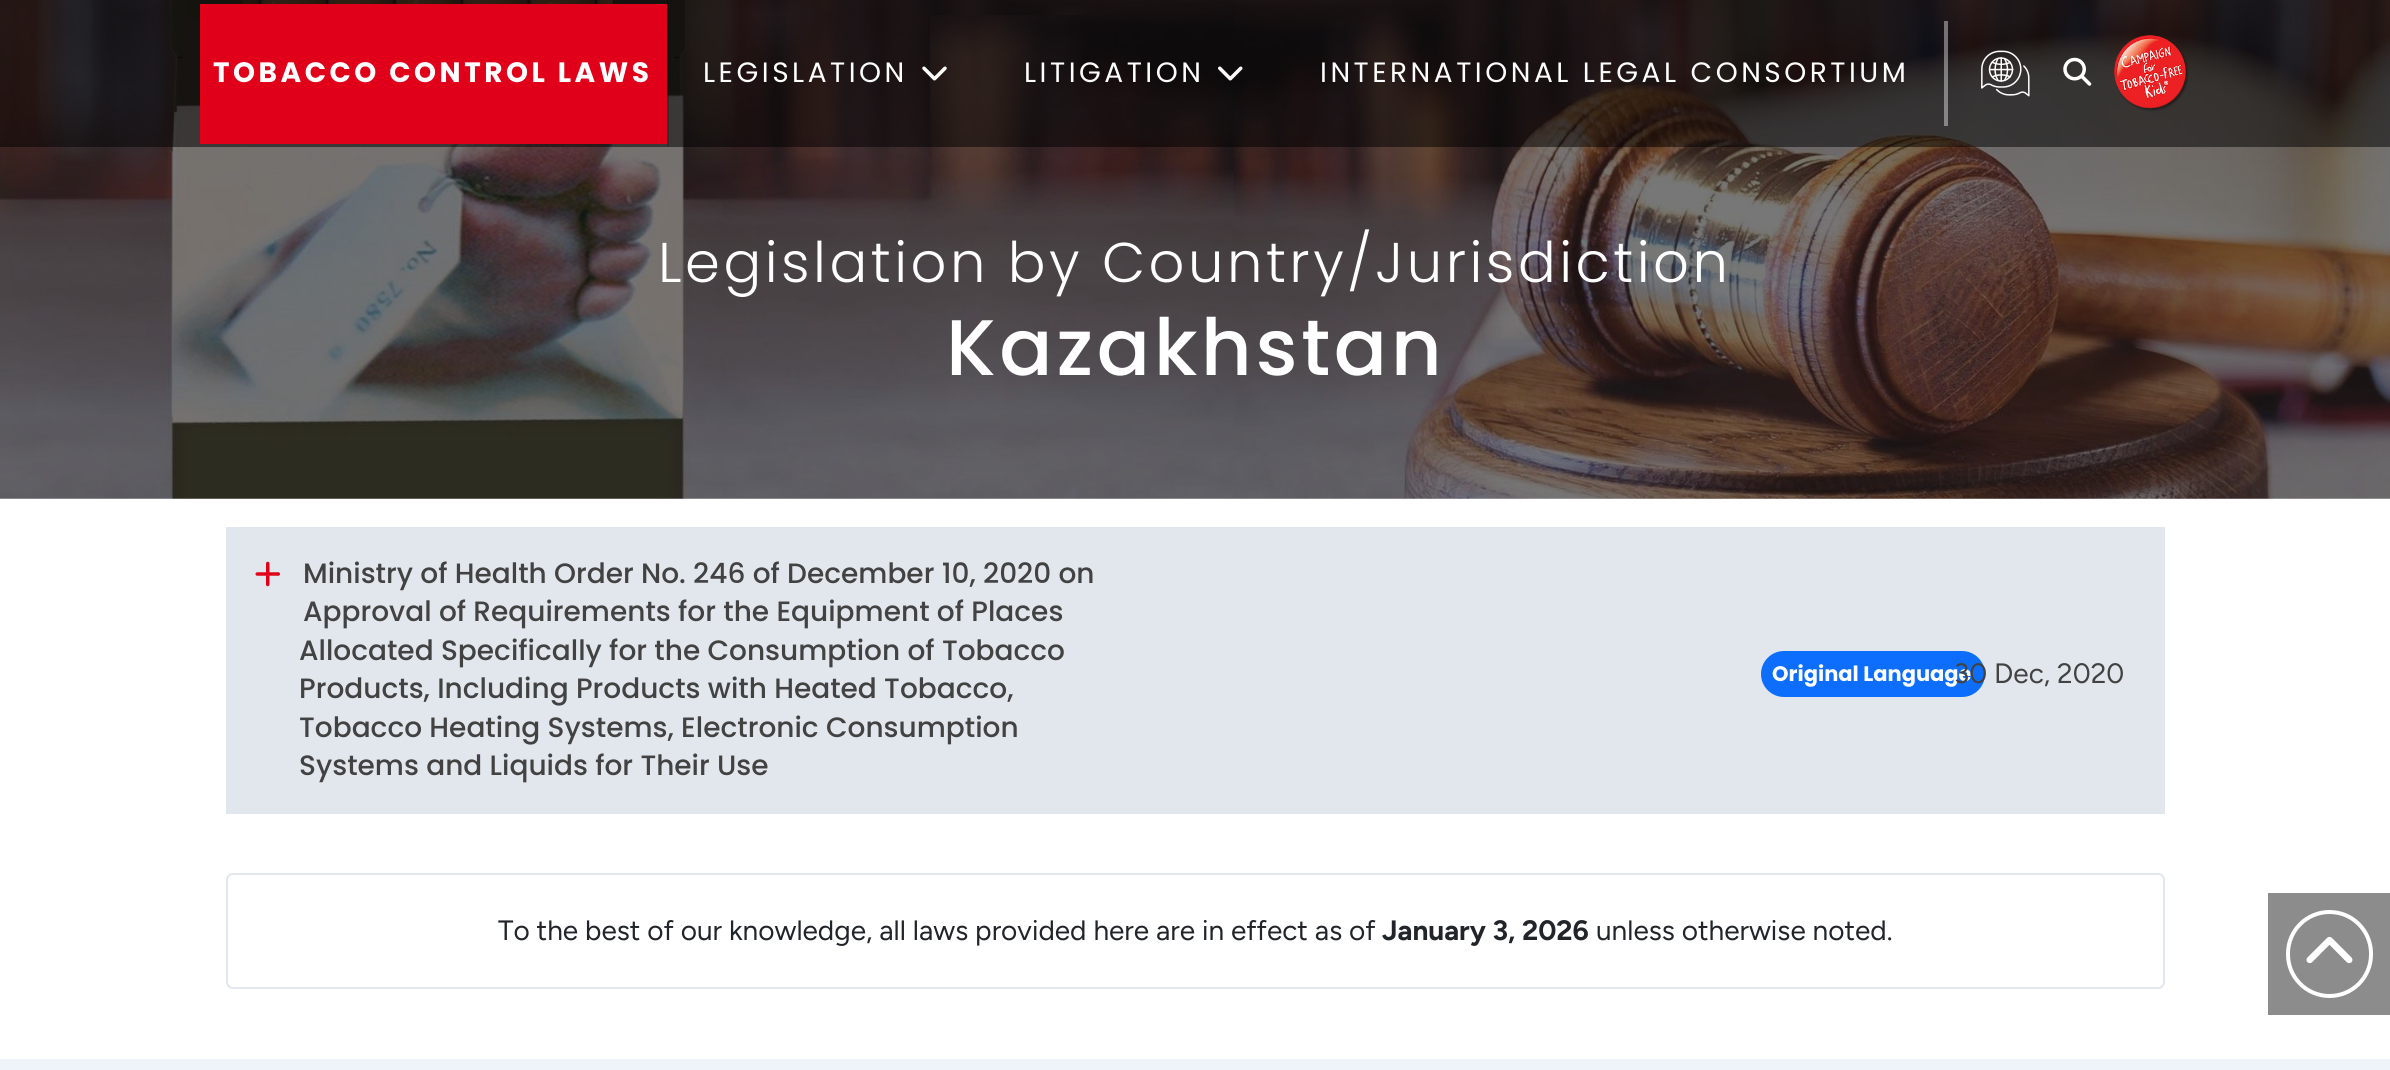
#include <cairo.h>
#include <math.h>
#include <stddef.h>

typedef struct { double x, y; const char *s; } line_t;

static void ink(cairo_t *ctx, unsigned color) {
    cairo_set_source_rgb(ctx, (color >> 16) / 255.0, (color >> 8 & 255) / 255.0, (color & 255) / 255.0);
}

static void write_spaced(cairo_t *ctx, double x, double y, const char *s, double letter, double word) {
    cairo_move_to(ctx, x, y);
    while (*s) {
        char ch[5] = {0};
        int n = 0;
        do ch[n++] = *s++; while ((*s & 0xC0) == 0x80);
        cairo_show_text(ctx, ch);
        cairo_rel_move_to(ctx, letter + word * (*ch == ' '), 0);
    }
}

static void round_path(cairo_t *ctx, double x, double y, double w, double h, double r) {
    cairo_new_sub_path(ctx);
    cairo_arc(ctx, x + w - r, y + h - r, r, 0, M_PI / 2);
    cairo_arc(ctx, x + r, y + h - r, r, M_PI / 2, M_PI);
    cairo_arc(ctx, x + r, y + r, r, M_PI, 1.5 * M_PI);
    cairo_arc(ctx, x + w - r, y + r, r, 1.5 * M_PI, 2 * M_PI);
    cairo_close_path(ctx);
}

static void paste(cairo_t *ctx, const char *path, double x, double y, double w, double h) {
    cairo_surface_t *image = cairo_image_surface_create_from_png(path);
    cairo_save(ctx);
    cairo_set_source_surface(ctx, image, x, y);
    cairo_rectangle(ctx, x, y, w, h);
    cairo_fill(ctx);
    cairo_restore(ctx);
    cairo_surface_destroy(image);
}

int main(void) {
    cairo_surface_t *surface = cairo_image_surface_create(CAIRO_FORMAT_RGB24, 2390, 1070);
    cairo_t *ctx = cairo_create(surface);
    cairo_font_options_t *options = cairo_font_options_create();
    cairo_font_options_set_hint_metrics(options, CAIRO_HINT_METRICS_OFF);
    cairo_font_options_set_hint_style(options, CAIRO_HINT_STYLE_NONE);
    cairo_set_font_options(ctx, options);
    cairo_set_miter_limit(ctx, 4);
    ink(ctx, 0xFFFFFF);
    cairo_paint(ctx);
    paste(ctx, "media/6.png", 0, 0, 2390, 499);
    cairo_set_source_rgba(ctx, 0, 0, 0, 0.5);
    cairo_rectangle(ctx, 0, 0, 2390, 147);
    cairo_fill(ctx);
    ink(ctx, 0xE1001A);
    cairo_rectangle(ctx, 200, 4, 467, 140);
    cairo_fill(ctx);
    cairo_select_font_face(ctx, "Poppins", CAIRO_FONT_SLANT_NORMAL, CAIRO_FONT_WEIGHT_BOLD);
    cairo_set_font_size(ctx, 28);
    ink(ctx, 0xFFFFFF);
    write_spaced(ctx, 213, 82, "TOBACCO CONTROL LAWS", 3.5, 0);
    cairo_set_source_rgba(ctx, 0, 0, 0, 0.18);
    cairo_rectangle(ctx, 667, 0, 2, 147);
    cairo_fill(ctx);
    cairo_select_font_face(ctx, "Poppins", CAIRO_FONT_SLANT_NORMAL, CAIRO_FONT_WEIGHT_NORMAL);
    ink(ctx, 0xFFFFFF);
    write_spaced(ctx, 703, 82, "LEGISLATION", 3.5, 0);
    paste(ctx, "media/1.png", 922, 66, 25, 15);
    write_spaced(ctx, 1024, 82, "LITIGATION", 3.5, 0);
    paste(ctx, "media/2.png", 1218, 66, 25, 15);
    write_spaced(ctx, 1320, 82, "INTERNATIONAL LEGAL CONSORTIUM", 3.5, 0);
    cairo_set_source_rgba(ctx, 1, 1, 1, 0.4);
    cairo_rectangle(ctx, 1944, 21, 4, 105);
    cairo_fill(ctx);
    paste(ctx, "media/3.png", 1981, 50, 49, 47);
    paste(ctx, "media/4.png", 2063, 57, 29, 29);
    paste(ctx, "media/5.png", 2114, 35, 75, 76);
    cairo_select_font_face(ctx, "Poppins Light", CAIRO_FONT_SLANT_NORMAL, CAIRO_FONT_WEIGHT_NORMAL);
    cairo_set_font_size(ctx, 56);
    ink(ctx, 0xFFFFFF);
    write_spaced(ctx, 658, 282, "Legislation by Country/Jurisdiction", 3.5, 0);
    cairo_select_font_face(ctx, "Poppins Medium", CAIRO_FONT_SLANT_NORMAL, CAIRO_FONT_WEIGHT_NORMAL);
    cairo_set_font_size(ctx, 78.75);
    write_spaced(ctx, 946, 375, "Kazakhstan", 3.5, 0);
    ink(ctx, 0xE2E7ED);
    cairo_rectangle(ctx, 226, 527, 1939, 287);
    cairo_fill(ctx);
    paste(ctx, "media/7.png", 255, 561, 25, 26);
    cairo_set_font_size(ctx, 28);
    ink(ctx, 0x424242);
    {
        static const line_t items[] = {
            {303, 583, "Ministry of Health Order No. 246 of December 10, 2020 on"},
            {303, 621, "Approval of Requirements for the Equipment of Places"},
            {299, 660, "Allocated Specifically for the Consumption of Tobacco"},
            {299, 698, "Products, Including Products with Heated Tobacco,"},
            {299, 737, "Tobacco Heating Systems, Electronic Consumption"},
            {299, 775, "Systems and Liquids for Their Use"},
        };
        for (size_t i = 0; i < sizeof items / sizeof *items; i++) {
            cairo_move_to(ctx, items[i].x, items[i].y);
            cairo_show_text(ctx, items[i].s);
        }
    }
    ink(ctx, 0x0D6EFD);
    round_path(ctx, 1761, 651, 224, 46, 23);
    cairo_fill(ctx);
    cairo_select_font_face(ctx, "Poppins", CAIRO_FONT_SLANT_NORMAL, CAIRO_FONT_WEIGHT_BOLD);
    cairo_set_font_size(ctx, 21);
    ink(ctx, 0xFFFFFF);
    cairo_move_to(ctx, 1772, 681);
    cairo_show_text(ctx, "Original Language");
    cairo_select_font_face(ctx, "Figtree", CAIRO_FONT_SLANT_NORMAL, CAIRO_FONT_WEIGHT_NORMAL);
    cairo_set_font_size(ctx, 28);
    ink(ctx, 0x424242);
    cairo_move_to(ctx, 1954, 683);
    cairo_show_text(ctx, "30 Dec, 2020");
    round_path(ctx, 227, 874, 1937, 114, 6);
    ink(ctx, 0xE2E7EE);
    cairo_stroke(ctx);
    ink(ctx, 0x212529);
    cairo_move_to(ctx, 498, 940);
    cairo_show_text(ctx, "To the best of our knowledge, all laws provided here are in effect as of");
    cairo_select_font_face(ctx, "Figtree", CAIRO_FONT_SLANT_NORMAL, CAIRO_FONT_WEIGHT_BOLD);
    cairo_move_to(ctx, 1382, 940);
    cairo_show_text(ctx, "January 3, 2026");
    cairo_select_font_face(ctx, "Figtree", CAIRO_FONT_SLANT_NORMAL, CAIRO_FONT_WEIGHT_NORMAL);
    cairo_move_to(ctx, 1596, 940);
    cairo_show_text(ctx, "unless otherwise noted.");
    ink(ctx, 0x8B8C8B);
    cairo_rectangle(ctx, 2268, 893, 122, 122);
    cairo_fill(ctx);
    round_path(ctx, 2288, 912, 83, 84, 41.5);
    ink(ctx, 0xFFFFFF);
    cairo_set_line_width(ctx, 4);
    cairo_stroke(ctx);
    paste(ctx, "media/8.png", 2306, 936, 47, 28);
    ink(ctx, 0xEFF4FA);
    cairo_rectangle(ctx, 0, 1059, 2390, 11);
    cairo_fill(ctx);
    cairo_surface_write_to_png(surface, "image.png");
    cairo_font_options_destroy(options);
    cairo_destroy(ctx);
    cairo_surface_destroy(surface);
    return 0;
}
